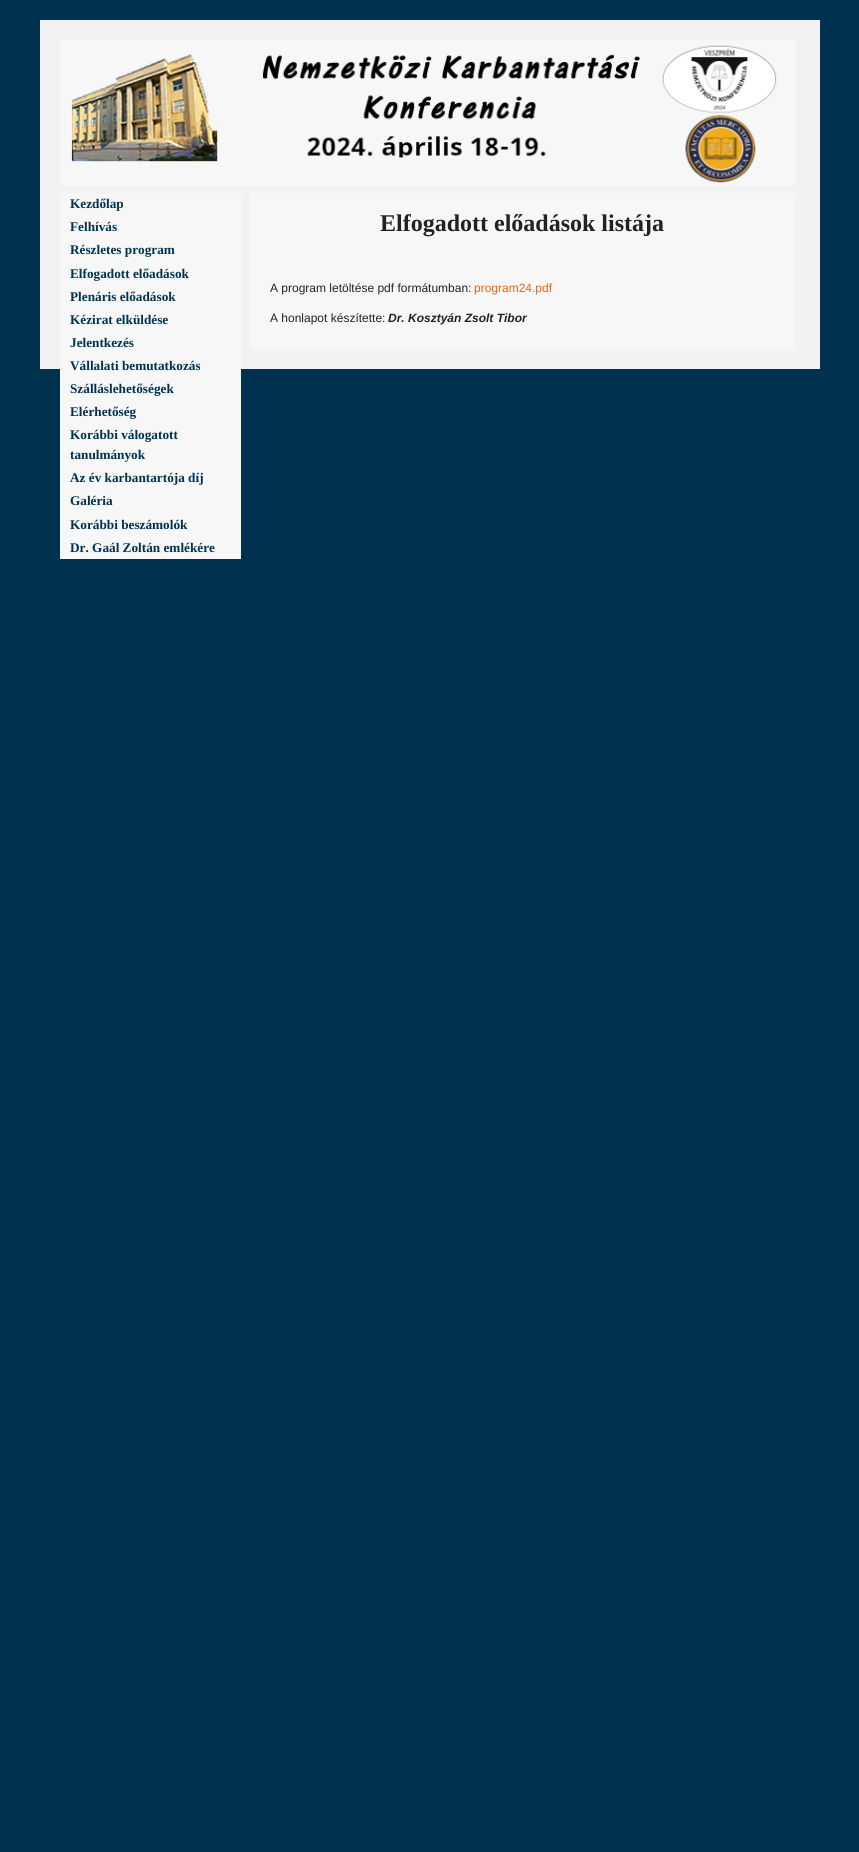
#include <cairo.h>
#include <math.h>
#include <stddef.h>

typedef struct { double x, y; const char *s; } line_t;

static void ink(cairo_t *ctx, unsigned color) {
    cairo_set_source_rgb(ctx, (color >> 16) / 255.0, (color >> 8 & 255) / 255.0, (color & 255) / 255.0);
}

static void paste(cairo_t *ctx, const char *path, double x, double y, double w, double h) {
    cairo_surface_t *image = cairo_image_surface_create_from_png(path);
    cairo_save(ctx);
    cairo_set_source_surface(ctx, image, x, y);
    cairo_rectangle(ctx, x, y, w, h);
    cairo_fill(ctx);
    cairo_restore(ctx);
    cairo_surface_destroy(image);
}

int main(void) {
    cairo_surface_t *surface = cairo_image_surface_create(CAIRO_FORMAT_RGB24, 859, 1852);
    cairo_t *ctx = cairo_create(surface);
    cairo_font_options_t *options = cairo_font_options_create();
    cairo_font_options_set_hint_metrics(options, CAIRO_HINT_METRICS_OFF);
    cairo_font_options_set_hint_style(options, CAIRO_HINT_STYLE_NONE);
    cairo_set_font_options(ctx, options);
    cairo_set_miter_limit(ctx, 4);
    ink(ctx, 0x003250);
    cairo_paint(ctx);
    ink(ctx, 0xF2F2F5);
    cairo_rectangle(ctx, 40, 20, 780, 349);
    cairo_fill(ctx);
    paste(ctx, "media/1.png", 60, 40, 736, 146);
    ink(ctx, 0xF7F7F7);
    cairo_rectangle(ctx, 60, 193, 181, 366);
    cairo_fill(ctx);
    cairo_select_font_face(ctx, "Liberation Serif", CAIRO_FONT_SLANT_NORMAL, CAIRO_FONT_WEIGHT_BOLD);
    cairo_set_font_size(ctx, 13.25);
    ink(ctx, 0x003250);
    {
        static const line_t items[] = {
            {70, 208, "Kezdőlap"},
            {70, 231, "Felhívás"},
            {70, 254, "Részletes program"},
            {70, 278, "Elfogadott előadások"},
            {70, 301, "Plenáris előadások"},
            {70, 324, "Kézirat elküldése"},
            {70, 347, "Jelentkezés"},
            {70, 370, "Vállalati bemutatkozás"},
            {70, 393, "Szálláslehetőségek"},
            {70, 416, "Elérhetőség"},
            {70, 439, "Korábbi válogatott"},
            {70, 459, "tanulmányok"},
            {70, 482, "Az év karbantartója díj"},
            {70, 505, "Galéria"},
            {70, 529, "Korábbi beszámolók"},
            {70, 552, "Dr. Gaál Zoltán emlékére"},
        };
        for (size_t i = 0; i < sizeof items / sizeof *items; i++) {
            cairo_move_to(ctx, items[i].x, items[i].y);
            cairo_show_text(ctx, items[i].s);
        }
    }
    ink(ctx, 0xF7F7F7);
    cairo_rectangle(ctx, 250, 193, 545, 156);
    cairo_fill(ctx);
    cairo_set_font_size(ctx, 24);
    ink(ctx, 0x222222);
    cairo_move_to(ctx, 380, 231);
    cairo_show_text(ctx, "Elfogadott előadások listája");
    cairo_select_font_face(ctx, "Liberation Sans", CAIRO_FONT_SLANT_NORMAL, CAIRO_FONT_WEIGHT_NORMAL);
    cairo_set_font_size(ctx, 12);
    cairo_move_to(ctx, 270, 292);
    cairo_show_text(ctx, "A program letöltése pdf formátumban:");
    ink(ctx, 0xF36207);
    cairo_move_to(ctx, 474, 292);
    cairo_show_text(ctx, "program24.pdf");
    ink(ctx, 0x222222);
    cairo_move_to(ctx, 270, 322);
    cairo_show_text(ctx, "A honlapot készítette:");
    cairo_select_font_face(ctx, "Liberation Sans", CAIRO_FONT_SLANT_ITALIC, CAIRO_FONT_WEIGHT_BOLD);
    cairo_move_to(ctx, 388, 322);
    cairo_show_text(ctx, "Dr. Kosztyán Zsolt Tibor");
    cairo_surface_write_to_png(surface, "image.png");
    cairo_font_options_destroy(options);
    cairo_destroy(ctx);
    cairo_surface_destroy(surface);
    return 0;
}
